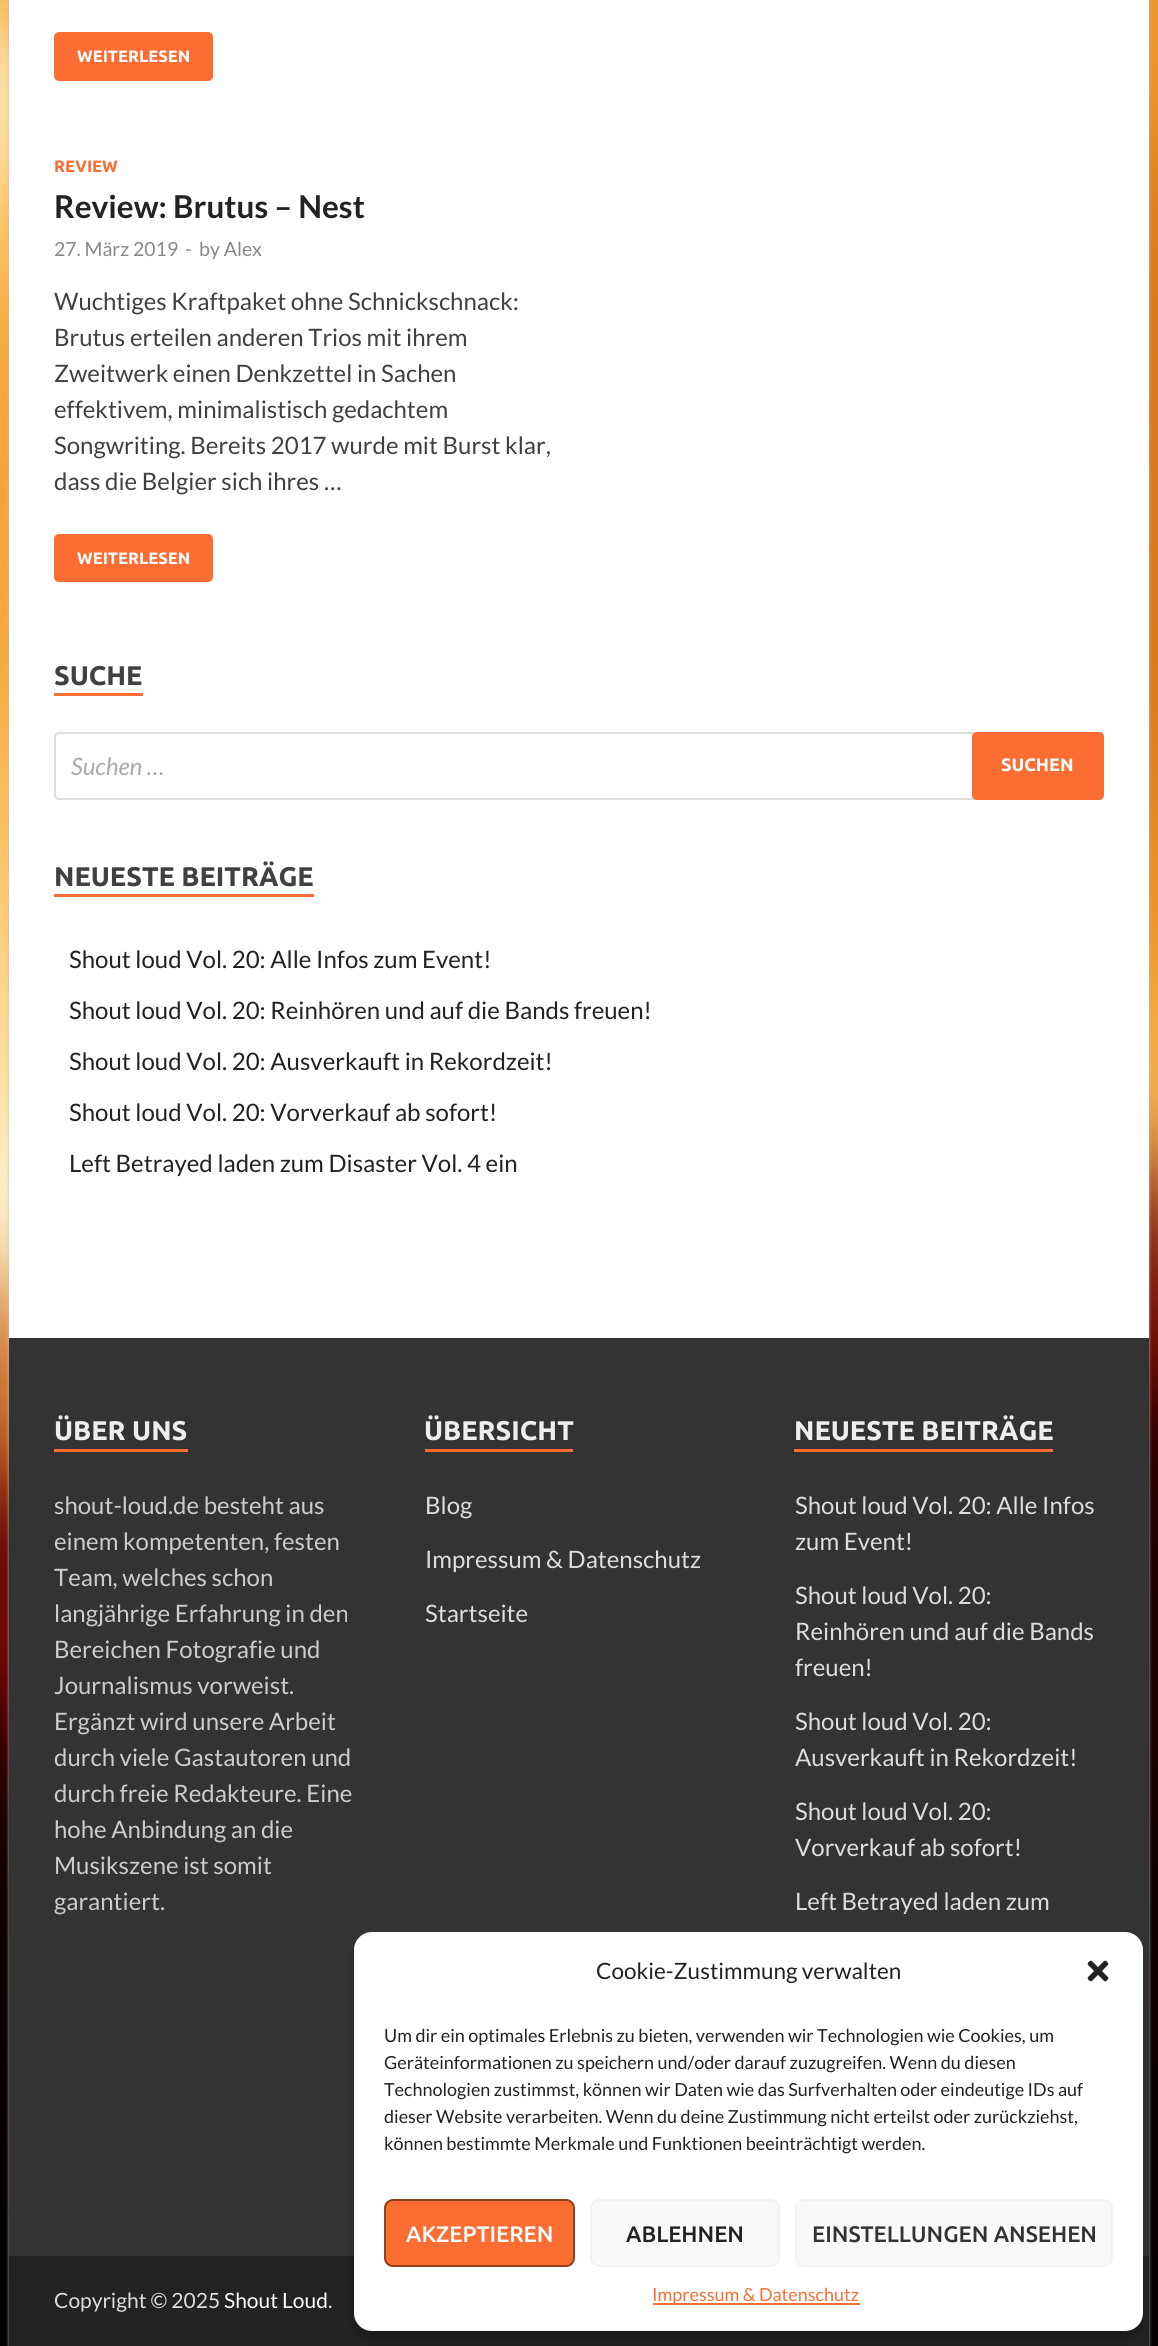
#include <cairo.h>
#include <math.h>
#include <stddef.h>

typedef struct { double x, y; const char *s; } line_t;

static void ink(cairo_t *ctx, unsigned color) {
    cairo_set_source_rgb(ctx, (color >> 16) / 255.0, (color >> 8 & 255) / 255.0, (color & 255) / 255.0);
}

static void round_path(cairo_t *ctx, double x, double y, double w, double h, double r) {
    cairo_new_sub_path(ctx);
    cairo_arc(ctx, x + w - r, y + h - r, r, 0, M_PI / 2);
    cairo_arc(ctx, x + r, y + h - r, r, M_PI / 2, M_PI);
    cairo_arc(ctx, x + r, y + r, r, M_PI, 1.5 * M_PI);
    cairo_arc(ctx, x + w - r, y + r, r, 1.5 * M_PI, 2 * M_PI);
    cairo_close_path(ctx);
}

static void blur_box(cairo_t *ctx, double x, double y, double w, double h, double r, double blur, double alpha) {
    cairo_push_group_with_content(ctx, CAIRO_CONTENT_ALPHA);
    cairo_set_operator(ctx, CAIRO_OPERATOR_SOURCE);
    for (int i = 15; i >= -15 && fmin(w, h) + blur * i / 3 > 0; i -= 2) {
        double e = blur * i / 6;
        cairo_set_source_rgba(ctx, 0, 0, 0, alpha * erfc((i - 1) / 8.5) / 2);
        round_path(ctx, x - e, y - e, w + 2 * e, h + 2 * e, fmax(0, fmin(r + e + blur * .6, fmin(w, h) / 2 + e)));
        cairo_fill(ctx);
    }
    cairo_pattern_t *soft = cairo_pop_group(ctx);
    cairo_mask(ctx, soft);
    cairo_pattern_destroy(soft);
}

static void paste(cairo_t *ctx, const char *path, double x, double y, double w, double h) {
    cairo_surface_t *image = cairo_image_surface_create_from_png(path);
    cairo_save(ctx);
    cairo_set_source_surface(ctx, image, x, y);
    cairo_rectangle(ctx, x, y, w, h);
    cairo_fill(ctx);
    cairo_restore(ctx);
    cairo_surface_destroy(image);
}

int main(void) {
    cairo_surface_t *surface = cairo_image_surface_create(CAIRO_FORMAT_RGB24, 1158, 2346);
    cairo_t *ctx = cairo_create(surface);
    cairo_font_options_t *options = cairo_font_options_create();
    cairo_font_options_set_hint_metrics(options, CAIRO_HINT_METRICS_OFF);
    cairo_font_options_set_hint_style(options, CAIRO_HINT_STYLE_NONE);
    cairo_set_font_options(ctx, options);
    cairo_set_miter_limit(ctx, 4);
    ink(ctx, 0xFFFFFF);
    cairo_paint(ctx);
    paste(ctx, "media/1.png", 0, 0, 1158, 2346);
    ink(ctx, 0xBBBBBB);
    blur_box(ctx, 9, -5, 1140, 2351, 0, 1.5, 1);
    ink(ctx, 0xFFFFFF);
    cairo_rectangle(ctx, 9, 0, 1140, 1338);
    cairo_fill(ctx);
    ink(ctx, 0xFB6D32);
    round_path(ctx, 54, 32, 159, 49, 5);
    cairo_fill(ctx);
    cairo_select_font_face(ctx, "Ubuntu", CAIRO_FONT_SLANT_NORMAL, CAIRO_FONT_WEIGHT_BOLD);
    cairo_set_font_size(ctx, 16.5);
    ink(ctx, 0xFFFFFF);
    cairo_move_to(ctx, 77, 62);
    cairo_show_text(ctx, "WEITERLESEN");
    ink(ctx, 0xFB6D32);
    cairo_move_to(ctx, 54, 172);
    cairo_show_text(ctx, "REVIEW");
    cairo_select_font_face(ctx, "Lato", CAIRO_FONT_SLANT_NORMAL, CAIRO_FONT_WEIGHT_BOLD);
    cairo_set_font_size(ctx, 31.5);
    ink(ctx, 0x222222);
    cairo_move_to(ctx, 54, 218);
    cairo_show_text(ctx, "Review: Brutus – Nest");
    cairo_select_font_face(ctx, "Lato", CAIRO_FONT_SLANT_NORMAL, CAIRO_FONT_WEIGHT_NORMAL);
    cairo_set_font_size(ctx, 19.5);
    ink(ctx, 0x888888);
    {
        static const line_t items[] = {
            {54, 256, "27. März 2019"},
            {185, 256, "-"},
            {199, 256, "by Alex"},
        };
        for (size_t i = 0; i < sizeof items / sizeof *items; i++) {
            cairo_move_to(ctx, items[i].x, items[i].y);
            cairo_show_text(ctx, items[i].s);
        }
    }
    cairo_set_font_size(ctx, 24);
    ink(ctx, 0x404040);
    {
        static const line_t items[] = {
            {54, 310, "Wuchtiges Kraftpaket ohne Schnickschnack:"},
            {54, 346, "Brutus erteilen anderen Trios mit ihrem"},
            {54, 382, "Zweitwerk einen Denkzettel in Sachen"},
            {54, 418, "effektivem, minimalistisch gedachtem"},
            {54, 454, "Songwriting. Bereits 2017 wurde mit Burst klar,"},
            {54, 490, "dass die Belgier sich ihres …"},
        };
        for (size_t i = 0; i < sizeof items / sizeof *items; i++) {
            cairo_move_to(ctx, items[i].x, items[i].y);
            cairo_show_text(ctx, items[i].s);
        }
    }
    ink(ctx, 0xFB6D32);
    round_path(ctx, 54, 534, 159, 48, 5);
    cairo_fill(ctx);
    cairo_select_font_face(ctx, "Ubuntu", CAIRO_FONT_SLANT_NORMAL, CAIRO_FONT_WEIGHT_BOLD);
    cairo_set_font_size(ctx, 16.5);
    ink(ctx, 0xFFFFFF);
    cairo_move_to(ctx, 77, 564);
    cairo_show_text(ctx, "WEITERLESEN");
    ink(ctx, 0xFB6D32);
    cairo_rectangle(ctx, 54, 693, 89, 3);
    cairo_fill(ctx);
    cairo_set_font_size(ctx, 27);
    ink(ctx, 0x404040);
    cairo_move_to(ctx, 54, 685);
    cairo_show_text(ctx, "SUCHE");
    round_path(ctx, 55, 733, 1048, 66, 4);
    ink(ctx, 0xDDDDDD);
    cairo_stroke(ctx);
    cairo_select_font_face(ctx, "Lato", CAIRO_FONT_SLANT_ITALIC, CAIRO_FONT_WEIGHT_NORMAL);
    cairo_set_font_size(ctx, 24);
    ink(ctx, 0xAAAAAA);
    cairo_move_to(ctx, 71, 775);
    cairo_show_text(ctx, "Suchen …");
    ink(ctx, 0xFB6D32);
    round_path(ctx, 972, 732, 132, 68, 5);
    cairo_fill(ctx);
    cairo_select_font_face(ctx, "Ubuntu", CAIRO_FONT_SLANT_NORMAL, CAIRO_FONT_WEIGHT_BOLD);
    cairo_set_font_size(ctx, 18);
    ink(ctx, 0xFFFFFF);
    cairo_move_to(ctx, 1001, 771);
    cairo_show_text(ctx, "SUCHEN");
    ink(ctx, 0xFB6D32);
    cairo_rectangle(ctx, 54, 894, 260, 3);
    cairo_fill(ctx);
    cairo_set_font_size(ctx, 27);
    ink(ctx, 0x404040);
    cairo_move_to(ctx, 54, 886);
    cairo_show_text(ctx, "NEUESTE BEITRÄGE");
    cairo_select_font_face(ctx, "Lato", CAIRO_FONT_SLANT_NORMAL, CAIRO_FONT_WEIGHT_NORMAL);
    cairo_set_font_size(ctx, 24);
    ink(ctx, 0x222222);
    {
        static const line_t items[] = {
            {69, 968, "Shout loud Vol. 20: Alle Infos zum Event!"},
            {69, 1019, "Shout loud Vol. 20: Reinhören und auf die Bands freuen!"},
            {69, 1070, "Shout loud Vol. 20: Ausverkauft in Rekordzeit!"},
            {69, 1121, "Shout loud Vol. 20: Vorverkauf ab sofort!"},
            {69, 1172, "Left Betrayed laden zum Disaster Vol. 4 ein"},
        };
        for (size_t i = 0; i < sizeof items / sizeof *items; i++) {
            cairo_move_to(ctx, items[i].x, items[i].y);
            cairo_show_text(ctx, items[i].s);
        }
    }
    ink(ctx, 0x333333);
    cairo_rectangle(ctx, 9, 1338, 1140, 918);
    cairo_fill(ctx);
    ink(ctx, 0xFB6D32);
    cairo_rectangle(ctx, 54, 1449, 134, 3);
    cairo_fill(ctx);
    cairo_select_font_face(ctx, "Ubuntu", CAIRO_FONT_SLANT_NORMAL, CAIRO_FONT_WEIGHT_BOLD);
    cairo_set_font_size(ctx, 27);
    ink(ctx, 0xEEEEEE);
    cairo_move_to(ctx, 54, 1440);
    cairo_show_text(ctx, "ÜBER UNS");
    cairo_select_font_face(ctx, "Lato", CAIRO_FONT_SLANT_NORMAL, CAIRO_FONT_WEIGHT_NORMAL);
    cairo_set_font_size(ctx, 24);
    ink(ctx, 0xCCCCCC);
    {
        static const line_t items[] = {
            {54, 1514, "shout-loud.de besteht aus"},
            {54, 1550, "einem kompetenten, festen"},
            {54, 1586, "Team, welches schon"},
            {54, 1622, "langjährige Erfahrung in den"},
            {54, 1658, "Bereichen Fotografie und"},
            {54, 1694, "Journalismus vorweist."},
            {54, 1730, "Ergänzt wird unsere Arbeit"},
            {54, 1766, "durch viele Gastautoren und"},
            {54, 1802, "durch freie Redakteure. Eine"},
            {54, 1838, "hohe Anbindung an die"},
            {54, 1874, "Musikszene ist somit"},
            {54, 1910, "garantiert."},
        };
        for (size_t i = 0; i < sizeof items / sizeof *items; i++) {
            cairo_move_to(ctx, items[i].x, items[i].y);
            cairo_show_text(ctx, items[i].s);
        }
    }
    ink(ctx, 0xFB6D32);
    cairo_rectangle(ctx, 425, 1449, 148, 3);
    cairo_fill(ctx);
    cairo_select_font_face(ctx, "Ubuntu", CAIRO_FONT_SLANT_NORMAL, CAIRO_FONT_WEIGHT_BOLD);
    cairo_set_font_size(ctx, 27);
    ink(ctx, 0xEEEEEE);
    cairo_move_to(ctx, 424, 1440);
    cairo_show_text(ctx, "ÜBERSICHT");
    cairo_select_font_face(ctx, "Lato", CAIRO_FONT_SLANT_NORMAL, CAIRO_FONT_WEIGHT_NORMAL);
    cairo_set_font_size(ctx, 24);
    ink(ctx, 0xDDDDDD);
    {
        static const line_t items[] = {
            {425, 1514, "Blog"},
            {425, 1568, "Impressum & Datenschutz"},
            {425, 1622, "Startseite"},
        };
        for (size_t i = 0; i < sizeof items / sizeof *items; i++) {
            cairo_move_to(ctx, items[i].x, items[i].y);
            cairo_show_text(ctx, items[i].s);
        }
    }
    ink(ctx, 0xFB6D32);
    cairo_rectangle(ctx, 794, 1449, 259, 3);
    cairo_fill(ctx);
    cairo_select_font_face(ctx, "Ubuntu", CAIRO_FONT_SLANT_NORMAL, CAIRO_FONT_WEIGHT_BOLD);
    cairo_set_font_size(ctx, 27);
    ink(ctx, 0xEEEEEE);
    cairo_move_to(ctx, 794, 1440);
    cairo_show_text(ctx, "NEUESTE BEITRÄGE");
    cairo_select_font_face(ctx, "Lato", CAIRO_FONT_SLANT_NORMAL, CAIRO_FONT_WEIGHT_NORMAL);
    cairo_set_font_size(ctx, 24);
    ink(ctx, 0xDDDDDD);
    {
        static const line_t items[] = {
            {795, 1514, "Shout loud Vol. 20: Alle Infos"},
            {795, 1550, "zum Event!"},
            {795, 1604, "Shout loud Vol. 20:"},
            {795, 1640, "Reinhören und auf die Bands"},
            {795, 1676, "freuen!"},
            {795, 1730, "Shout loud Vol. 20:"},
            {795, 1766, "Ausverkauft in Rekordzeit!"},
            {795, 1820, "Shout loud Vol. 20:"},
            {795, 1856, "Vorverkauf ab sofort!"},
            {795, 1910, "Left Betrayed laden zum"},
        };
        for (size_t i = 0; i < sizeof items / sizeof *items; i++) {
            cairo_move_to(ctx, items[i].x, items[i].y);
            cairo_show_text(ctx, items[i].s);
        }
    }
    ink(ctx, 0x222222);
    cairo_rectangle(ctx, 9, 2256, 1140, 90);
    cairo_fill(ctx);
    cairo_set_font_size(ctx, 21);
    ink(ctx, 0xDDDDDD);
    cairo_move_to(ctx, 54, 2308);
    cairo_show_text(ctx, "Copyright © 2025");
    ink(ctx, 0xFFFFFF);
    cairo_move_to(ctx, 224, 2308);
    cairo_show_text(ctx, "Shout Loud");
    ink(ctx, 0xDDDDDD);
    cairo_move_to(ctx, 328, 2308);
    cairo_show_text(ctx, ".");
    ink(ctx, 0x000000);
    blur_box(ctx, 354, 1941, 789, 399, 18, 4.5, 0.23);
    ink(ctx, 0xFFFFFF);
    round_path(ctx, 354, 1932, 789, 399, 18);
    cairo_fill(ctx);
    cairo_set_font_size(ctx, 22.5);
    ink(ctx, 0x222222);
    cairo_move_to(ctx, 596, 1979);
    cairo_show_text(ctx, "Cookie-Zustimmung verwalten");
    paste(ctx, "media/2.png", 1087, 1960, 22, 22);
    cairo_set_font_size(ctx, 18);
    {
        static const line_t items[] = {
            {384, 2042, "Um dir ein optimales Erlebnis zu bieten, verwenden wir Technologien wie Cookies, um"},
            {384, 2069, "Geräteinformationen zu speichern und/oder darauf zuzugreifen. Wenn du diesen"},
            {384, 2096, "Technologien zustimmst, können wir Daten wie das Surfverhalten oder eindeutige IDs auf"},
            {384, 2123, "dieser Website verarbeiten. Wenn du deine Zustimmung nicht erteilst oder zurückziehst,"},
            {384, 2150, "können bestimmte Merkmale und Funktionen beeinträchtigt werden."},
        };
        for (size_t i = 0; i < sizeof items / sizeof *items; i++) {
            cairo_move_to(ctx, items[i].x, items[i].y);
            cairo_show_text(ctx, items[i].s);
        }
    }
    ink(ctx, 0xFB6D32);
    round_path(ctx, 385, 2200, 189, 66, 8);
    cairo_fill_preserve(ctx);
    ink(ctx, 0x8E421C);
    cairo_stroke(ctx);
    cairo_select_font_face(ctx, "Ubuntu Medium", CAIRO_FONT_SLANT_NORMAL, CAIRO_FONT_WEIGHT_NORMAL);
    cairo_set_font_size(ctx, 22.5);
    ink(ctx, 0xFFFFFF);
    cairo_move_to(ctx, 406, 2242);
    cairo_show_text(ctx, "AKZEPTIEREN");
    ink(ctx, 0xF9F9F9);
    round_path(ctx, 591, 2200, 188, 66, 8);
    cairo_fill_preserve(ctx);
    ink(ctx, 0xF2F2F2);
    cairo_stroke(ctx);
    ink(ctx, 0x222222);
    cairo_move_to(ctx, 626, 2242);
    cairo_show_text(ctx, "ABLEHNEN");
    ink(ctx, 0xF9F9F9);
    round_path(ctx, 796, 2200, 316, 66, 8);
    cairo_fill_preserve(ctx);
    ink(ctx, 0xF2F2F2);
    cairo_stroke(ctx);
    ink(ctx, 0x333333);
    cairo_move_to(ctx, 812, 2242);
    cairo_show_text(ctx, "EINSTELLUNGEN ANSEHEN");
    ink(ctx, 0xFB6D32);
    cairo_rectangle(ctx, 653, 2303, 207, 2);
    cairo_fill(ctx);
    cairo_select_font_face(ctx, "Lato", CAIRO_FONT_SLANT_NORMAL, CAIRO_FONT_WEIGHT_NORMAL);
    cairo_set_font_size(ctx, 18);
    cairo_move_to(ctx, 652, 2301);
    cairo_show_text(ctx, "Impressum & Datenschutz");
    cairo_surface_write_to_png(surface, "image.png");
    cairo_font_options_destroy(options);
    cairo_destroy(ctx);
    cairo_surface_destroy(surface);
    return 0;
}
